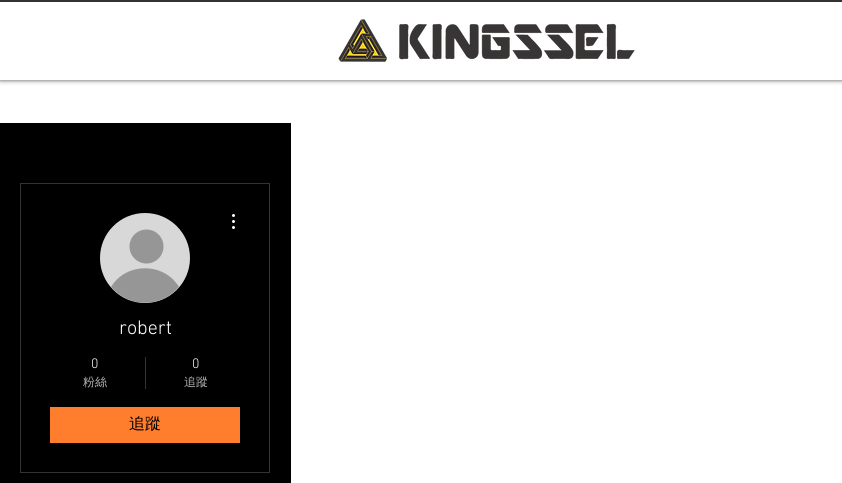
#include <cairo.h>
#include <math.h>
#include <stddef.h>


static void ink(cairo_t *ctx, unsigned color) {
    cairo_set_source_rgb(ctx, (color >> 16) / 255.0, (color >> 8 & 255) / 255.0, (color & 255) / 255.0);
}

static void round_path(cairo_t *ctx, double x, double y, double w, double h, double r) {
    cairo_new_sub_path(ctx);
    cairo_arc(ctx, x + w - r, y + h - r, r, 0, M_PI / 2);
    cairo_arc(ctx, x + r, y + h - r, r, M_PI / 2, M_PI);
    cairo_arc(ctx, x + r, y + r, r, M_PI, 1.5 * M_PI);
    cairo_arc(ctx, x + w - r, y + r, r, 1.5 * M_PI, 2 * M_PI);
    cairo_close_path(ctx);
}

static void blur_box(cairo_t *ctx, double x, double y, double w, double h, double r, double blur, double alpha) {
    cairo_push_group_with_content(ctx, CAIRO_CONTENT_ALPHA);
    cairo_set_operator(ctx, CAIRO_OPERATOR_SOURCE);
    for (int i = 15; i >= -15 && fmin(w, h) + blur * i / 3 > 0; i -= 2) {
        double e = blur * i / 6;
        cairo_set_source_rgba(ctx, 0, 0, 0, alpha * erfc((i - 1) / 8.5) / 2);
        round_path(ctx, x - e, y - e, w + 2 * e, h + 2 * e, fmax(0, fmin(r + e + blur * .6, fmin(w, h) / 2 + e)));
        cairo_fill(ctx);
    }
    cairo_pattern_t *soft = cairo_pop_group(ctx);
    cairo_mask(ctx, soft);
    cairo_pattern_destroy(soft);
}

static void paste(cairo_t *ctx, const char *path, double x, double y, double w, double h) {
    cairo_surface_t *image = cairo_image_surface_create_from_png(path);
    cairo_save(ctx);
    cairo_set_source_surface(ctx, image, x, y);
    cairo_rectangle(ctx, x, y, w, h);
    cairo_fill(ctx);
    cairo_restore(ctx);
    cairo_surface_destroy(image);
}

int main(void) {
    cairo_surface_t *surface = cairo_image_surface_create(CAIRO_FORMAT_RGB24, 842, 483);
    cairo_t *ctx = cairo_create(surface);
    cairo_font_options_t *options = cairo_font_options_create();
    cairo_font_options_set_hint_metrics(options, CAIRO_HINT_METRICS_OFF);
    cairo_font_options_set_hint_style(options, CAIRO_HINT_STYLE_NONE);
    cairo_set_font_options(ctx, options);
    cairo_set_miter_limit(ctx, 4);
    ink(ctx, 0xFFFFFF);
    cairo_paint(ctx);
    ink(ctx, 0x000000);
    blur_box(ctx, 0, 0, 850, 80, 0, 2.5, 0.7);
    ink(ctx, 0xFFFFFF);
    cairo_rectangle(ctx, 0, 2, 842, 78);
    cairo_fill(ctx);
    ink(ctx, 0x333333);
    cairo_rectangle(ctx, 0, 0, 842, 2);
    cairo_fill(ctx);
    paste(ctx, "media/1.png", 338, 19, 49, 43);
    paste(ctx, "media/2.png", 399, 23, 236, 37);
    ink(ctx, 0x000000);
    cairo_rectangle(ctx, 0, 123, 291, 360);
    cairo_fill(ctx);
    cairo_rectangle(ctx, 20.5, 183.5, 249, 289);
    ink(ctx, 0x333333);
    cairo_set_line_width(ctx, 1);
    cairo_stroke(ctx);
    ink(ctx, 0xD8D8D8);
    cairo_arc(ctx, 145, 258, 45, 0, 2 * M_PI);
    cairo_fill(ctx);
    ink(ctx, 0x969696);
    cairo_arc(ctx, 146.5, 246.5, 17, 0, 2 * M_PI);
    cairo_fill(ctx);
    cairo_new_path(ctx);
    cairo_move_to(ctx, 179, 287);
    cairo_curve_to(ctx, 161, 308, 129, 308, 111, 287);
    cairo_curve_to(ctx, 126, 262, 164, 262, 179, 287);
    cairo_close_path(ctx);
    cairo_fill(ctx);
    paste(ctx, "media/3.png", 232, 214, 3, 15);
    cairo_select_font_face(ctx, "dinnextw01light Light", CAIRO_FONT_SLANT_NORMAL, CAIRO_FONT_WEIGHT_NORMAL);
    cairo_set_font_size(ctx, 20);
    ink(ctx, 0xFFFFFF);
    cairo_move_to(ctx, 119, 334);
    cairo_show_text(ctx, "robert");
    cairo_set_font_size(ctx, 14);
    cairo_move_to(ctx, 91, 368);
    cairo_show_text(ctx, "0");
    cairo_select_font_face(ctx, "WenQuanYi Zen Hei Medium", CAIRO_FONT_SLANT_NORMAL, CAIRO_FONT_WEIGHT_NORMAL);
    cairo_set_font_size(ctx, 12);
    ink(ctx, 0xB3B3B3);
    cairo_move_to(ctx, 83, 386);
    cairo_show_text(ctx, "粉絲");
    ink(ctx, 0x333333);
    cairo_rectangle(ctx, 145, 357, 1, 32);
    cairo_fill(ctx);
    cairo_select_font_face(ctx, "dinnextw01light Light", CAIRO_FONT_SLANT_NORMAL, CAIRO_FONT_WEIGHT_NORMAL);
    cairo_set_font_size(ctx, 14);
    ink(ctx, 0xFFFFFF);
    cairo_move_to(ctx, 192, 368);
    cairo_show_text(ctx, "0");
    cairo_select_font_face(ctx, "WenQuanYi Zen Hei Medium", CAIRO_FONT_SLANT_NORMAL, CAIRO_FONT_WEIGHT_NORMAL);
    cairo_set_font_size(ctx, 12);
    ink(ctx, 0xB3B3B3);
    cairo_move_to(ctx, 184, 386);
    cairo_show_text(ctx, "追蹤");
    ink(ctx, 0xFF7E2D);
    cairo_rectangle(ctx, 50, 407, 190, 36);
    cairo_fill(ctx);
    cairo_set_font_size(ctx, 16);
    ink(ctx, 0x000000);
    cairo_move_to(ctx, 129, 429);
    cairo_show_text(ctx, "追蹤");
    cairo_surface_write_to_png(surface, "image.png");
    cairo_font_options_destroy(options);
    cairo_destroy(ctx);
    cairo_surface_destroy(surface);
    return 0;
}
